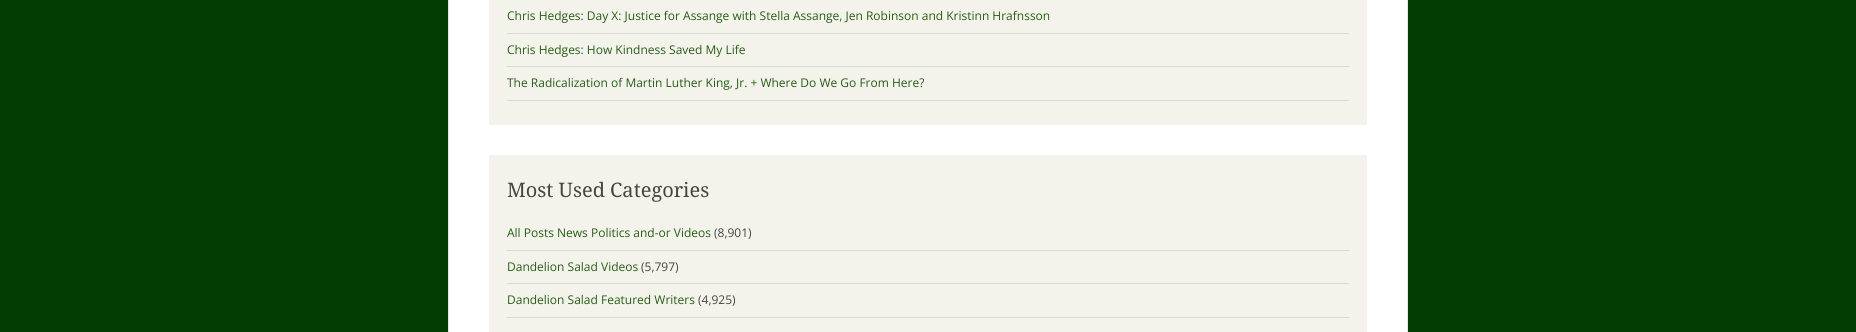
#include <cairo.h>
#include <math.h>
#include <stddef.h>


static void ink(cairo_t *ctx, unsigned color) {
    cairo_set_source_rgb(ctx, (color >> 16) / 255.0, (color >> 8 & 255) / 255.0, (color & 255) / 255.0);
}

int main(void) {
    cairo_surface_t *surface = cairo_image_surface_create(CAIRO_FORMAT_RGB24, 1856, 332);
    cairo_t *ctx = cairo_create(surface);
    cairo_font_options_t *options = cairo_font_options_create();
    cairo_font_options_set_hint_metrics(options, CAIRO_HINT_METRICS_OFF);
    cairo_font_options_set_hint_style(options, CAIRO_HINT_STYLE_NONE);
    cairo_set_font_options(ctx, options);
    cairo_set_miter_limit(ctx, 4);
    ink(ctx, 0x043D04);
    cairo_paint(ctx);
    ink(ctx, 0xFFFFFF);
    cairo_rectangle(ctx, 448.5, -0.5, 959, 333);
    cairo_fill_preserve(ctx);
    ink(ctx, 0xE5E5E5);
    cairo_set_line_width(ctx, 1);
    cairo_stroke(ctx);
    ink(ctx, 0xF3F3EB);
    cairo_rectangle(ctx, 489, 0, 878, 125);
    cairo_fill(ctx);
    ink(ctx, 0xDBDBD4);
    cairo_rectangle(ctx, 507, 33, 842, 1);
    cairo_fill(ctx);
    cairo_select_font_face(ctx, "Open Sans", CAIRO_FONT_SLANT_NORMAL, CAIRO_FONT_WEIGHT_NORMAL);
    cairo_set_font_size(ctx, 12);
    ink(ctx, 0x265E15);
    cairo_move_to(ctx, 507, 20);
    cairo_show_text(ctx, "Chris Hedges: Day X: Justice for Assange with Stella Assange, Jen Robinson and Kristinn Hrafnsson");
    ink(ctx, 0xDBDBD4);
    cairo_rectangle(ctx, 507, 66, 842, 1);
    cairo_fill(ctx);
    ink(ctx, 0x265E15);
    cairo_move_to(ctx, 507, 54);
    cairo_show_text(ctx, "Chris Hedges: How Kindness Saved My Life");
    ink(ctx, 0xDBDBD4);
    cairo_rectangle(ctx, 507, 100, 842, 1);
    cairo_fill(ctx);
    ink(ctx, 0x265E15);
    cairo_move_to(ctx, 507, 87);
    cairo_show_text(ctx, "The Radicalization of Martin Luther King, Jr. + Where Do We Go From Here?");
    ink(ctx, 0xF3F3EB);
    cairo_rectangle(ctx, 489, 155, 878, 177);
    cairo_fill(ctx);
    cairo_select_font_face(ctx, "Droid Serif", CAIRO_FONT_SLANT_NORMAL, CAIRO_FONT_WEIGHT_NORMAL);
    cairo_set_font_size(ctx, 20);
    ink(ctx, 0x444444);
    cairo_move_to(ctx, 507, 197);
    cairo_show_text(ctx, "Most Used Categories");
    ink(ctx, 0xDBDBD4);
    cairo_rectangle(ctx, 507, 250, 842, 1);
    cairo_fill(ctx);
    cairo_select_font_face(ctx, "Open Sans", CAIRO_FONT_SLANT_NORMAL, CAIRO_FONT_WEIGHT_NORMAL);
    cairo_set_font_size(ctx, 12);
    ink(ctx, 0x265E15);
    cairo_move_to(ctx, 507, 237);
    cairo_show_text(ctx, "All Posts News Politics and-or Videos");
    ink(ctx, 0x444444);
    cairo_move_to(ctx, 714, 237);
    cairo_show_text(ctx, "(8,901)");
    ink(ctx, 0xDBDBD4);
    cairo_rectangle(ctx, 507, 283, 842, 1);
    cairo_fill(ctx);
    ink(ctx, 0x265E15);
    cairo_move_to(ctx, 507, 271);
    cairo_show_text(ctx, "Dandelion Salad Videos");
    ink(ctx, 0x444444);
    cairo_move_to(ctx, 641, 271);
    cairo_show_text(ctx, "(5,797)");
    ink(ctx, 0xDBDBD4);
    cairo_rectangle(ctx, 507, 317, 842, 1);
    cairo_fill(ctx);
    ink(ctx, 0x265E15);
    cairo_move_to(ctx, 507, 304);
    cairo_show_text(ctx, "Dandelion Salad Featured Writers");
    ink(ctx, 0x444444);
    cairo_move_to(ctx, 698, 304);
    cairo_show_text(ctx, "(4,925)");
    cairo_surface_write_to_png(surface, "image.png");
    cairo_font_options_destroy(options);
    cairo_destroy(ctx);
    cairo_surface_destroy(surface);
    return 0;
}
